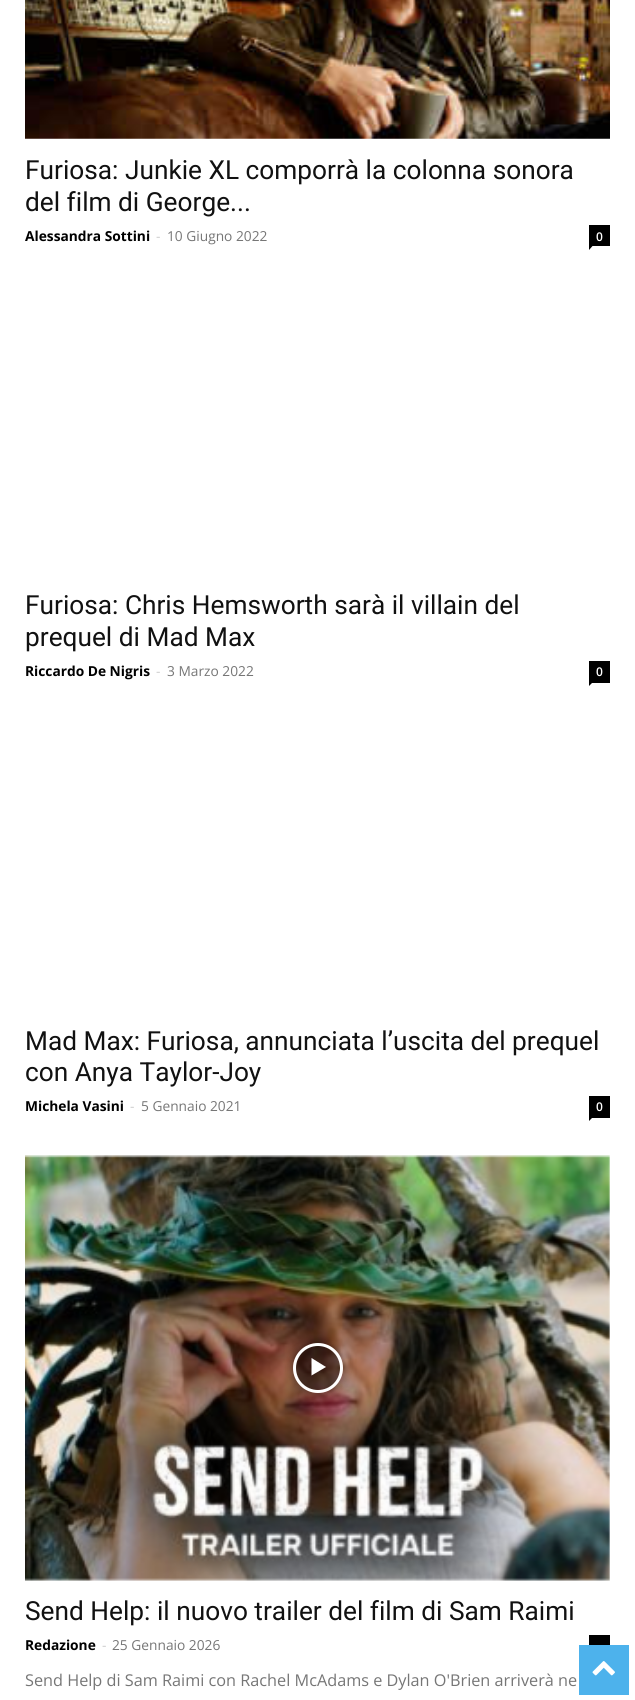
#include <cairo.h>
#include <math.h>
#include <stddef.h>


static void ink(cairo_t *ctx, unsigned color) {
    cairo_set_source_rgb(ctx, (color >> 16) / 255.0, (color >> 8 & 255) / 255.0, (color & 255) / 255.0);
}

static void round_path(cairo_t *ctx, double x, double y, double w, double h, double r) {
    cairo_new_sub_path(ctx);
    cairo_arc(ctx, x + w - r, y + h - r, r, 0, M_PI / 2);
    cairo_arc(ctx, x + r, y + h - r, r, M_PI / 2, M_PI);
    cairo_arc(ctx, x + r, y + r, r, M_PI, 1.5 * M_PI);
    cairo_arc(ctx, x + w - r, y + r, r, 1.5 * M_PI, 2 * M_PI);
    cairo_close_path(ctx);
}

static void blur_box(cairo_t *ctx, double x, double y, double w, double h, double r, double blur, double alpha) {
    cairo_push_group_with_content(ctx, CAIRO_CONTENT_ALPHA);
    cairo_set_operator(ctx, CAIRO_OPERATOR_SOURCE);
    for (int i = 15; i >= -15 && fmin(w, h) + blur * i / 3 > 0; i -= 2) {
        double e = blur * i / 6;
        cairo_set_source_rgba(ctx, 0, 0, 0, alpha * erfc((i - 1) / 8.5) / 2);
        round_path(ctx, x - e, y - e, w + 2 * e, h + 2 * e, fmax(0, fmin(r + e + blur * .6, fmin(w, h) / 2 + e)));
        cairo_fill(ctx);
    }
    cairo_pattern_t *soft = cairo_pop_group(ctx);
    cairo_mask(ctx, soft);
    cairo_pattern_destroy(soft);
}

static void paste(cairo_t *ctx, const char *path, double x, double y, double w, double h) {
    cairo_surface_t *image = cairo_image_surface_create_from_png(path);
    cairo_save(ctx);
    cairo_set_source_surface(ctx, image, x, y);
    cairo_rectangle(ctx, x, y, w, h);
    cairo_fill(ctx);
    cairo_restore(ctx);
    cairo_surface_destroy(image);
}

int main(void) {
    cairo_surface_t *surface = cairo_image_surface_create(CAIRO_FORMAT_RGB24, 635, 1700);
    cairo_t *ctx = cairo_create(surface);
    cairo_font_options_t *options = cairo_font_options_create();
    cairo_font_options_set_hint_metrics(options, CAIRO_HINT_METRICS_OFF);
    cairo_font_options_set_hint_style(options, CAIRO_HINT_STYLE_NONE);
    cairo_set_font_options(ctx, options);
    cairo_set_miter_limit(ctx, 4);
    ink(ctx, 0xFFFFFF);
    cairo_paint(ctx);
    paste(ctx, "media/1.png", 25, 0, 585, 139);
    cairo_select_font_face(ctx, "Roboto", CAIRO_FONT_SLANT_NORMAL, CAIRO_FONT_WEIGHT_NORMAL);
    cairo_set_font_size(ctx, 26.25);
    ink(ctx, 0x111111);
    cairo_move_to(ctx, 25, 179);
    cairo_show_text(ctx, "Furiosa: Junkie XL comporrà la colonna sonora");
    cairo_move_to(ctx, 25, 211);
    cairo_show_text(ctx, "del film di George...");
    cairo_select_font_face(ctx, "Open Sans", CAIRO_FONT_SLANT_NORMAL, CAIRO_FONT_WEIGHT_BOLD);
    cairo_set_font_size(ctx, 13.75);
    ink(ctx, 0x000000);
    cairo_move_to(ctx, 25, 241);
    cairo_show_text(ctx, "Alessandra Sottini");
    cairo_select_font_face(ctx, "Open Sans", CAIRO_FONT_SLANT_NORMAL, CAIRO_FONT_WEIGHT_NORMAL);
    ink(ctx, 0xCCCCCC);
    cairo_move_to(ctx, 156, 241);
    cairo_show_text(ctx, "-");
    ink(ctx, 0x767676);
    cairo_move_to(ctx, 167, 241);
    cairo_show_text(ctx, "10 Giugno 2022");
    ink(ctx, 0x000000);
    cairo_rectangle(ctx, 589, 225, 21, 21);
    cairo_fill(ctx);
    cairo_select_font_face(ctx, "Open Sans SemiBold", CAIRO_FONT_SLANT_NORMAL, CAIRO_FONT_WEIGHT_NORMAL);
    cairo_set_font_size(ctx, 12);
    ink(ctx, 0xFFFFFF);
    cairo_move_to(ctx, 596, 241);
    cairo_show_text(ctx, "0");
    ink(ctx, 0x000000);
    cairo_new_path(ctx);
    cairo_move_to(ctx, 589, 246);
    cairo_line_to(ctx, 592.5, 246);
    cairo_line_to(ctx, 589, 250);
    cairo_close_path(ctx);
    cairo_fill(ctx);
    cairo_select_font_face(ctx, "Roboto", CAIRO_FONT_SLANT_NORMAL, CAIRO_FONT_WEIGHT_NORMAL);
    cairo_set_font_size(ctx, 26.25);
    ink(ctx, 0x111111);
    cairo_move_to(ctx, 25, 614);
    cairo_show_text(ctx, "Furiosa: Chris Hemsworth sarà il villain del");
    cairo_move_to(ctx, 25, 646);
    cairo_show_text(ctx, "prequel di Mad Max");
    cairo_select_font_face(ctx, "Open Sans", CAIRO_FONT_SLANT_NORMAL, CAIRO_FONT_WEIGHT_BOLD);
    cairo_set_font_size(ctx, 13.75);
    ink(ctx, 0x000000);
    cairo_move_to(ctx, 25, 676);
    cairo_show_text(ctx, "Riccardo De Nigris");
    cairo_select_font_face(ctx, "Open Sans", CAIRO_FONT_SLANT_NORMAL, CAIRO_FONT_WEIGHT_NORMAL);
    ink(ctx, 0xCCCCCC);
    cairo_move_to(ctx, 156, 676);
    cairo_show_text(ctx, "-");
    ink(ctx, 0x767676);
    cairo_move_to(ctx, 167, 676);
    cairo_show_text(ctx, "3 Marzo 2022");
    ink(ctx, 0x000000);
    cairo_rectangle(ctx, 589, 661, 21, 22);
    cairo_fill(ctx);
    cairo_select_font_face(ctx, "Open Sans SemiBold", CAIRO_FONT_SLANT_NORMAL, CAIRO_FONT_WEIGHT_NORMAL);
    cairo_set_font_size(ctx, 12);
    ink(ctx, 0xFFFFFF);
    cairo_move_to(ctx, 596, 676);
    cairo_show_text(ctx, "0");
    ink(ctx, 0x000000);
    cairo_new_path(ctx);
    cairo_move_to(ctx, 589, 682.5);
    cairo_line_to(ctx, 592.5, 682.5);
    cairo_line_to(ctx, 589, 686);
    cairo_close_path(ctx);
    cairo_fill(ctx);
    cairo_select_font_face(ctx, "Roboto", CAIRO_FONT_SLANT_NORMAL, CAIRO_FONT_WEIGHT_NORMAL);
    cairo_set_font_size(ctx, 26.25);
    ink(ctx, 0x111111);
    cairo_move_to(ctx, 25, 1050);
    cairo_show_text(ctx, "Mad Max: Furiosa, annunciata l’uscita del prequel");
    cairo_move_to(ctx, 25, 1081);
    cairo_show_text(ctx, "con Anya Taylor-Joy");
    cairo_select_font_face(ctx, "Open Sans", CAIRO_FONT_SLANT_NORMAL, CAIRO_FONT_WEIGHT_BOLD);
    cairo_set_font_size(ctx, 13.75);
    ink(ctx, 0x000000);
    cairo_move_to(ctx, 25, 1111);
    cairo_show_text(ctx, "Michela Vasini");
    cairo_select_font_face(ctx, "Open Sans", CAIRO_FONT_SLANT_NORMAL, CAIRO_FONT_WEIGHT_NORMAL);
    ink(ctx, 0xCCCCCC);
    cairo_move_to(ctx, 130, 1111);
    cairo_show_text(ctx, "-");
    ink(ctx, 0x767676);
    cairo_move_to(ctx, 141, 1111);
    cairo_show_text(ctx, "5 Gennaio 2021");
    ink(ctx, 0x000000);
    cairo_rectangle(ctx, 589, 1096, 21, 22);
    cairo_fill(ctx);
    cairo_select_font_face(ctx, "Open Sans SemiBold", CAIRO_FONT_SLANT_NORMAL, CAIRO_FONT_WEIGHT_NORMAL);
    cairo_set_font_size(ctx, 12);
    ink(ctx, 0xFFFFFF);
    cairo_move_to(ctx, 596, 1111);
    cairo_show_text(ctx, "0");
    ink(ctx, 0x000000);
    cairo_new_path(ctx);
    cairo_move_to(ctx, 589, 1117.5);
    cairo_line_to(ctx, 592.5, 1117.5);
    cairo_line_to(ctx, 589, 1121);
    cairo_close_path(ctx);
    cairo_fill(ctx);
    paste(ctx, "media/2.png", 25, 1155, 585, 426);
    cairo_save(ctx);
    cairo_set_fill_rule(ctx, CAIRO_FILL_RULE_EVEN_ODD);
    cairo_new_path(ctx);
    cairo_move_to(ctx, 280, 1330);
    cairo_line_to(ctx, 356, 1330);
    cairo_line_to(ctx, 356, 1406);
    cairo_line_to(ctx, 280, 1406);
    cairo_close_path(ctx);
    cairo_move_to(ctx, 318, 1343);
    cairo_curve_to(ctx, 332, 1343, 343, 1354, 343, 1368);
    cairo_curve_to(ctx, 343, 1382, 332, 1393, 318, 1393);
    cairo_curve_to(ctx, 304, 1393, 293, 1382, 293, 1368);
    cairo_curve_to(ctx, 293, 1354, 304, 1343, 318, 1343);
    cairo_close_path(ctx);
    cairo_clip(ctx);
    ink(ctx, 0x000000);
    blur_box(ctx, 293, 1343, 50, 50, 25, 4, 0.4);
    cairo_restore(ctx);
    cairo_set_source_rgba(ctx, 0, 0, 0, 0.48);
    cairo_arc(ctx, 318, 1368, 23.5, 0, 2 * M_PI);
    cairo_fill_preserve(ctx);
    ink(ctx, 0xFFFFFF);
    cairo_set_line_width(ctx, 3);
    cairo_stroke(ctx);
    cairo_new_path(ctx);
    cairo_move_to(ctx, 311.5, 1358);
    cairo_line_to(ctx, 311.5, 1375.5);
    cairo_line_to(ctx, 326, 1367);
    cairo_close_path(ctx);
    cairo_fill(ctx);
    cairo_select_font_face(ctx, "Roboto", CAIRO_FONT_SLANT_NORMAL, CAIRO_FONT_WEIGHT_NORMAL);
    cairo_set_font_size(ctx, 26.25);
    ink(ctx, 0x111111);
    cairo_move_to(ctx, 25, 1620);
    cairo_show_text(ctx, "Send Help: il nuovo trailer del film di Sam Raimi");
    cairo_select_font_face(ctx, "Open Sans", CAIRO_FONT_SLANT_NORMAL, CAIRO_FONT_WEIGHT_BOLD);
    cairo_set_font_size(ctx, 13.75);
    ink(ctx, 0x000000);
    cairo_move_to(ctx, 25, 1650);
    cairo_show_text(ctx, "Redazione");
    cairo_select_font_face(ctx, "Open Sans", CAIRO_FONT_SLANT_NORMAL, CAIRO_FONT_WEIGHT_NORMAL);
    ink(ctx, 0xCCCCCC);
    cairo_move_to(ctx, 102, 1650);
    cairo_show_text(ctx, "-");
    ink(ctx, 0x767676);
    cairo_move_to(ctx, 112, 1650);
    cairo_show_text(ctx, "25 Gennaio 2026");
    ink(ctx, 0x000000);
    cairo_rectangle(ctx, 589, 1635, 21, 10);
    cairo_fill(ctx);
    cairo_set_font_size(ctx, 16.25);
    ink(ctx, 0x767676);
    cairo_move_to(ctx, 25, 1686);
    cairo_show_text(ctx, "Send Help di Sam Raimi con Rachel McAdams e Dylan O'Brien arriverà ne");
    ink(ctx, 0x4DB2EC);
    cairo_rectangle(ctx, 579, 1645, 50, 50);
    cairo_fill(ctx);
    paste(ctx, "media/3.png", 592, 1661, 23, 15);
    cairo_surface_write_to_png(surface, "image.png");
    cairo_font_options_destroy(options);
    cairo_destroy(ctx);
    cairo_surface_destroy(surface);
    return 0;
}
